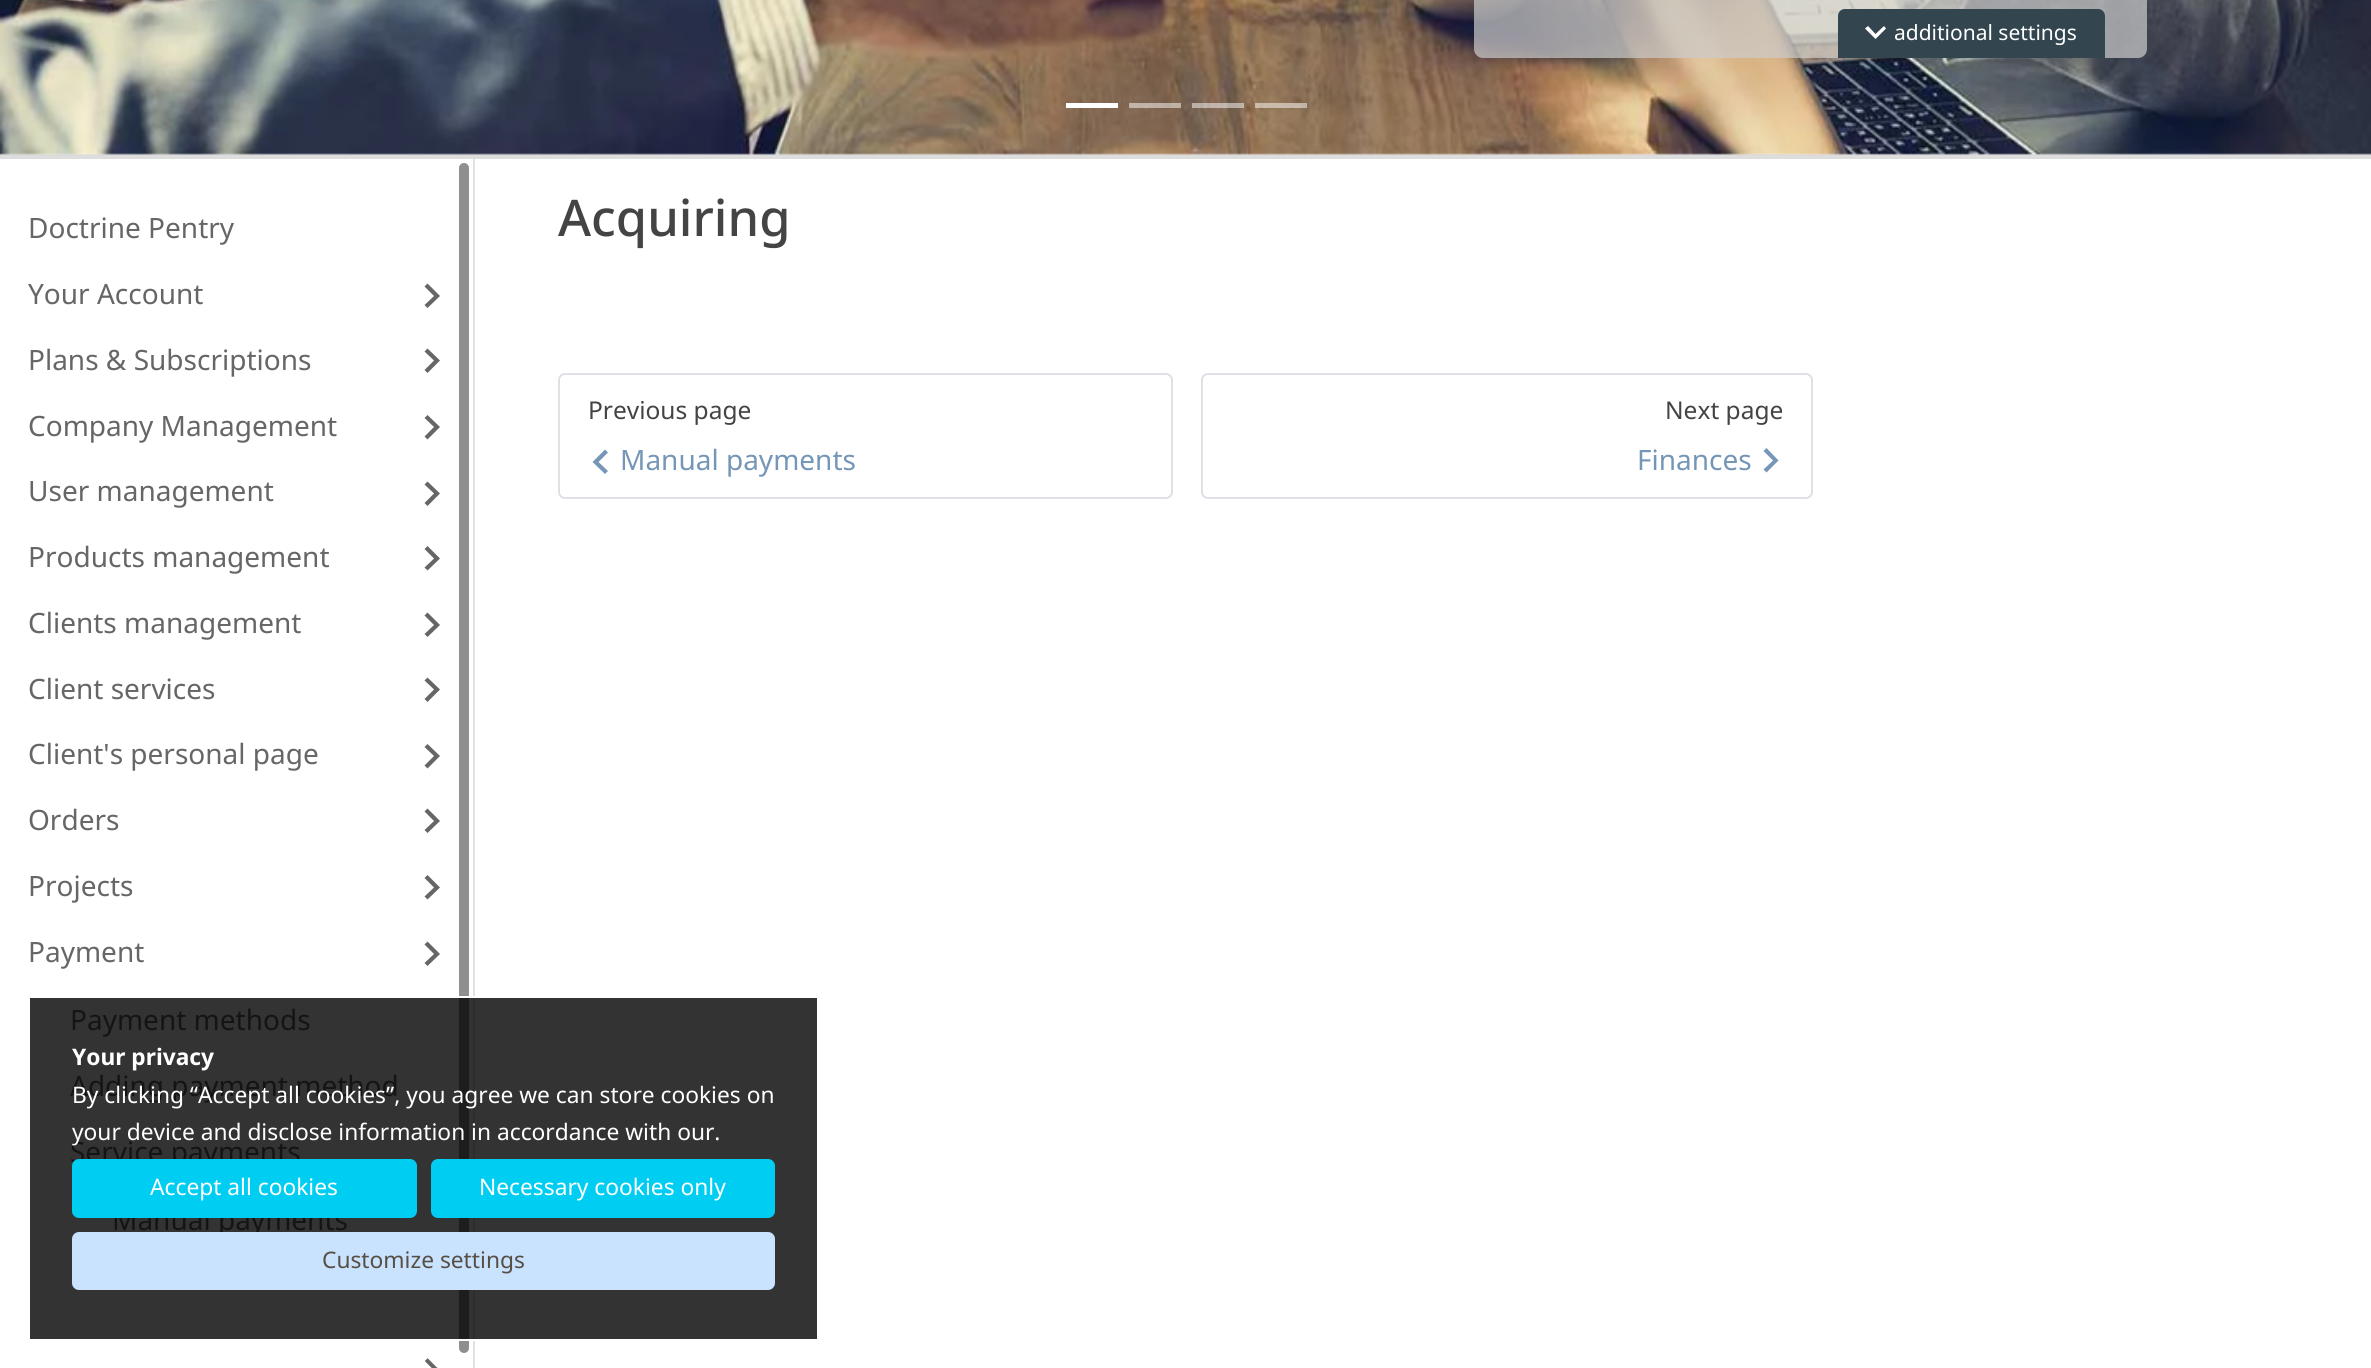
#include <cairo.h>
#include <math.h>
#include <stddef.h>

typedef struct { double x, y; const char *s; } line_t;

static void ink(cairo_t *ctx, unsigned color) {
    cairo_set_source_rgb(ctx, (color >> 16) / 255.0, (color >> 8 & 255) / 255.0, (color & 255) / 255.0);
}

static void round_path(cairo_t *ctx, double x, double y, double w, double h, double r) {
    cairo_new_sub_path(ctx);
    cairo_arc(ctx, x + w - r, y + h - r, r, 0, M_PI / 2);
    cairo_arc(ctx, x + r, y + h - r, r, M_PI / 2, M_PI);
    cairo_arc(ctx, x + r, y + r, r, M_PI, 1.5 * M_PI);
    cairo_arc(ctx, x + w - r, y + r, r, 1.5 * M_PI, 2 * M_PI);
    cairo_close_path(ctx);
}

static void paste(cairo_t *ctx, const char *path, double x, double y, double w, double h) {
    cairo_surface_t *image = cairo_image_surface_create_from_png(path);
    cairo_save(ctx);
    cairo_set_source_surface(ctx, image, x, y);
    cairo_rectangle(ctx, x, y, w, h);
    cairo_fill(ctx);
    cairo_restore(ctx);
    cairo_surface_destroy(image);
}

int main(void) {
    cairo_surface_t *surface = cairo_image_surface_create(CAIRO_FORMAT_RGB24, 2371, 1368);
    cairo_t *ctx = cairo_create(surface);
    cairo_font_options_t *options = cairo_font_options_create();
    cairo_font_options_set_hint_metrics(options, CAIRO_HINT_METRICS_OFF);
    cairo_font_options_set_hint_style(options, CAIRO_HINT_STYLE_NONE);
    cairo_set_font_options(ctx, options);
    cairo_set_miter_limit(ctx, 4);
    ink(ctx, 0xFFFFFF);
    cairo_paint(ctx);
    ink(ctx, 0x333333);
    cairo_rectangle(ctx, 30, 998, 787, 341);
    cairo_fill(ctx);
    ink(ctx, 0xDDDDDD);
    cairo_rectangle(ctx, 0, 154, 2371, 5);
    cairo_fill(ctx);
    paste(ctx, "media/1.png", 0, 0, 2371, 155);
    cairo_set_source_rgba(ctx, 0.8, 0.8, 0.8, 0.7);
    round_path(ctx, 1474, -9, 673, 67, 9);
    cairo_fill(ctx);
    ink(ctx, 0x33464F);
    cairo_new_path(ctx);
    cairo_move_to(ctx, 1845, 9);
    cairo_line_to(ctx, 2098, 9);
    cairo_curve_to(ctx, 2102, 9, 2105, 12, 2105, 16);
    cairo_line_to(ctx, 2105, 58);
    cairo_line_to(ctx, 1838, 58);
    cairo_line_to(ctx, 1838, 16);
    cairo_curve_to(ctx, 1838, 12, 1841, 9, 1845, 9);
    cairo_close_path(ctx);
    cairo_fill(ctx);
    ink(ctx, 0xFFFFFF);
    cairo_new_path(ctx);
    cairo_move_to(ctx, 1868, 26);
    cairo_line_to(ctx, 1875.5, 34);
    cairo_line_to(ctx, 1884, 26);
    cairo_line_to(ctx, 1886, 28.5);
    cairo_line_to(ctx, 1875.5, 39);
    cairo_line_to(ctx, 1865, 28.5);
    cairo_close_path(ctx);
    cairo_fill(ctx);
    cairo_select_font_face(ctx, "Noto Sans", CAIRO_FONT_SLANT_NORMAL, CAIRO_FONT_WEIGHT_NORMAL);
    cairo_set_font_size(ctx, 21);
    cairo_move_to(ctx, 1894, 40);
    cairo_show_text(ctx, "additional settings");
    cairo_rectangle(ctx, 1066, 103, 52, 5);
    cairo_fill(ctx);
    cairo_set_source_rgba(ctx, 1, 1, 1, 0.5);
    cairo_rectangle(ctx, 1129, 103, 52, 5);
    cairo_fill(ctx);
    cairo_rectangle(ctx, 1192, 103, 52, 5);
    cairo_fill(ctx);
    cairo_rectangle(ctx, 1255, 103, 52, 5);
    cairo_fill(ctx);
    ink(ctx, 0xDEE2E6);
    cairo_rectangle(ctx, 473, 159, 2, 1209);
    cairo_fill(ctx);
    ink(ctx, 0x2C2D2E);
    cairo_rectangle(ctx, 473, 996, 2, 345);
    cairo_fill(ctx);
    cairo_set_font_size(ctx, 28);
    ink(ctx, 0x666666);
    cairo_move_to(ctx, 28, 238);
    cairo_show_text(ctx, "Doctrine Pentry");
    cairo_move_to(ctx, 28, 304);
    cairo_show_text(ctx, "Your Account");
    cairo_new_path(ctx);
    cairo_move_to(ctx, 424.5, 305);
    cairo_line_to(ctx, 434, 296);
    cairo_line_to(ctx, 424.5, 286.5);
    cairo_line_to(ctx, 427.5, 283.5);
    cairo_line_to(ctx, 440, 296);
    cairo_line_to(ctx, 427.5, 308);
    cairo_close_path(ctx);
    cairo_fill(ctx);
    cairo_move_to(ctx, 28, 370);
    cairo_show_text(ctx, "Plans & Subscriptions");
    cairo_new_path(ctx);
    cairo_move_to(ctx, 424.5, 370);
    cairo_line_to(ctx, 434, 360.5);
    cairo_line_to(ctx, 424.5, 351.5);
    cairo_line_to(ctx, 427.5, 348.5);
    cairo_line_to(ctx, 440, 360.5);
    cairo_line_to(ctx, 427.5, 373);
    cairo_close_path(ctx);
    cairo_fill(ctx);
    cairo_move_to(ctx, 28, 436);
    cairo_show_text(ctx, "Company Management");
    cairo_new_path(ctx);
    cairo_move_to(ctx, 424.5, 436.5);
    cairo_line_to(ctx, 434, 427);
    cairo_line_to(ctx, 424.5, 418);
    cairo_line_to(ctx, 427.5, 415);
    cairo_line_to(ctx, 440, 427);
    cairo_line_to(ctx, 427.5, 439.5);
    cairo_close_path(ctx);
    cairo_fill(ctx);
    cairo_move_to(ctx, 28, 501);
    cairo_show_text(ctx, "User management");
    cairo_new_path(ctx);
    cairo_move_to(ctx, 424.5, 503);
    cairo_line_to(ctx, 434, 493.5);
    cairo_line_to(ctx, 424.5, 484.5);
    cairo_line_to(ctx, 427.5, 481.5);
    cairo_line_to(ctx, 440, 493.5);
    cairo_line_to(ctx, 427.5, 506);
    cairo_close_path(ctx);
    cairo_fill(ctx);
    cairo_move_to(ctx, 28, 567);
    cairo_show_text(ctx, "Products management");
    cairo_new_path(ctx);
    cairo_move_to(ctx, 424.5, 567.5);
    cairo_line_to(ctx, 434, 558.5);
    cairo_line_to(ctx, 424.5, 549);
    cairo_line_to(ctx, 427.5, 546);
    cairo_line_to(ctx, 440, 558.5);
    cairo_line_to(ctx, 427.5, 570.5);
    cairo_close_path(ctx);
    cairo_fill(ctx);
    cairo_move_to(ctx, 28, 633);
    cairo_show_text(ctx, "Clients management");
    cairo_new_path(ctx);
    cairo_move_to(ctx, 424.5, 634);
    cairo_line_to(ctx, 434, 625);
    cairo_line_to(ctx, 424.5, 615.5);
    cairo_line_to(ctx, 427.5, 612.5);
    cairo_line_to(ctx, 440, 625);
    cairo_line_to(ctx, 427.5, 637);
    cairo_close_path(ctx);
    cairo_fill(ctx);
    cairo_move_to(ctx, 28, 699);
    cairo_show_text(ctx, "Client services");
    cairo_new_path(ctx);
    cairo_move_to(ctx, 424.5, 699);
    cairo_line_to(ctx, 434, 689.5);
    cairo_line_to(ctx, 424.5, 680.5);
    cairo_line_to(ctx, 427.5, 677.5);
    cairo_line_to(ctx, 440, 689.5);
    cairo_line_to(ctx, 427.5, 702);
    cairo_close_path(ctx);
    cairo_fill(ctx);
    cairo_move_to(ctx, 28, 764);
    cairo_show_text(ctx, "Client's personal page");
    cairo_new_path(ctx);
    cairo_move_to(ctx, 424.5, 765.5);
    cairo_line_to(ctx, 434, 756);
    cairo_line_to(ctx, 424.5, 747);
    cairo_line_to(ctx, 427.5, 744);
    cairo_line_to(ctx, 440, 756);
    cairo_line_to(ctx, 427.5, 768.5);
    cairo_close_path(ctx);
    cairo_fill(ctx);
    cairo_move_to(ctx, 28, 830);
    cairo_show_text(ctx, "Orders");
    cairo_new_path(ctx);
    cairo_move_to(ctx, 424.5, 830);
    cairo_line_to(ctx, 434, 821);
    cairo_line_to(ctx, 424.5, 811.5);
    cairo_line_to(ctx, 427.5, 808.5);
    cairo_line_to(ctx, 440, 821);
    cairo_line_to(ctx, 427.5, 833);
    cairo_close_path(ctx);
    cairo_fill(ctx);
    cairo_move_to(ctx, 28, 896);
    cairo_show_text(ctx, "Projects");
    cairo_new_path(ctx);
    cairo_move_to(ctx, 424.5, 896.5);
    cairo_line_to(ctx, 434, 887.5);
    cairo_line_to(ctx, 424.5, 878);
    cairo_line_to(ctx, 427.5, 875);
    cairo_line_to(ctx, 440, 887.5);
    cairo_line_to(ctx, 427.5, 899.5);
    cairo_close_path(ctx);
    cairo_fill(ctx);
    cairo_move_to(ctx, 28, 962);
    cairo_show_text(ctx, "Payment");
    cairo_new_path(ctx);
    cairo_move_to(ctx, 424.5, 963);
    cairo_line_to(ctx, 434, 954);
    cairo_line_to(ctx, 424.5, 944.5);
    cairo_line_to(ctx, 427.5, 941.5);
    cairo_line_to(ctx, 440, 954);
    cairo_line_to(ctx, 427.5, 966);
    cairo_close_path(ctx);
    cairo_fill(ctx);
    ink(ctx, 0x141414);
    {
        static const line_t items[] = {
            {70, 1030, "Payment methods"},
            {70, 1096, "Adding payment method"},
            {70, 1162, "Service payments"},
            {112, 1230, "Manual payments"},
        };
        for (size_t i = 0; i < sizeof items / sizeof *items; i++) {
            cairo_move_to(ctx, items[i].x, items[i].y);
            cairo_show_text(ctx, items[i].s);
        }
    }
    paste(ctx, "media/2.png", 424, 1358, 14, 10);
    ink(ctx, 0x8F8F8F);
    round_path(ctx, 459, 163, 10, 1190, 5);
    cairo_fill(ctx);
    ink(ctx, 0x1D1D1D);
    cairo_rectangle(ctx, 459, 998, 10, 341);
    cairo_fill(ctx);
    cairo_select_font_face(ctx, "Noto Sans Medium", CAIRO_FONT_SLANT_NORMAL, CAIRO_FONT_WEIGHT_NORMAL);
    cairo_set_font_size(ctx, 50.5);
    ink(ctx, 0x444444);
    cairo_move_to(ctx, 558, 236);
    cairo_show_text(ctx, "Acquiring");
    round_path(ctx, 559, 374, 613, 124, 6);
    ink(ctx, 0xDEE2E6);
    cairo_stroke(ctx);
    cairo_select_font_face(ctx, "Noto Sans", CAIRO_FONT_SLANT_NORMAL, CAIRO_FONT_WEIGHT_NORMAL);
    cairo_set_font_size(ctx, 24.5);
    ink(ctx, 0x444444);
    cairo_move_to(ctx, 588, 419);
    cairo_show_text(ctx, "Previous page");
    ink(ctx, 0x7596B6);
    cairo_new_path(ctx);
    cairo_move_to(ctx, 608, 452.5);
    cairo_line_to(ctx, 598.5, 462);
    cairo_line_to(ctx, 608, 471);
    cairo_line_to(ctx, 605, 474);
    cairo_line_to(ctx, 592.5, 462);
    cairo_line_to(ctx, 605, 449.5);
    cairo_close_path(ctx);
    cairo_fill(ctx);
    cairo_set_font_size(ctx, 28);
    cairo_move_to(ctx, 620, 470);
    cairo_show_text(ctx, "Manual payments");
    round_path(ctx, 1202, 374, 610, 124, 6);
    ink(ctx, 0xDEE2E6);
    cairo_stroke(ctx);
    cairo_set_font_size(ctx, 24.5);
    ink(ctx, 0x444444);
    cairo_move_to(ctx, 1665, 419);
    cairo_show_text(ctx, "Next page");
    cairo_set_font_size(ctx, 28);
    ink(ctx, 0x7596B6);
    cairo_move_to(ctx, 1637, 470);
    cairo_show_text(ctx, "Finances");
    cairo_new_path(ctx);
    cairo_move_to(ctx, 1763.5, 469.5);
    cairo_line_to(ctx, 1773, 460.5);
    cairo_line_to(ctx, 1763.5, 451);
    cairo_line_to(ctx, 1766.5, 448);
    cairo_line_to(ctx, 1778.5, 460.5);
    cairo_line_to(ctx, 1766.5, 472.5);
    cairo_close_path(ctx);
    cairo_fill(ctx);
    cairo_rectangle(ctx, 29, 997, 789, 343);
    ink(ctx, 0xFFFFFF);
    cairo_stroke(ctx);
    cairo_select_font_face(ctx, "Noto Sans", CAIRO_FONT_SLANT_NORMAL, CAIRO_FONT_WEIGHT_BOLD);
    cairo_set_font_size(ctx, 22.75);
    cairo_move_to(ctx, 72, 1065);
    cairo_show_text(ctx, "Your privacy");
    cairo_select_font_face(ctx, "Noto Sans", CAIRO_FONT_SLANT_NORMAL, CAIRO_FONT_WEIGHT_NORMAL);
    cairo_move_to(ctx, 72, 1103);
    cairo_show_text(ctx, "By clicking “Accept all cookies”, you agree we can store cookies on");
    cairo_move_to(ctx, 72, 1140);
    cairo_show_text(ctx, "your device and disclose information in accordance with our.");
    ink(ctx, 0x00CDF2);
    round_path(ctx, 72, 1159, 345, 59, 7);
    cairo_fill(ctx);
    ink(ctx, 0xFFFFFF);
    cairo_move_to(ctx, 150, 1195);
    cairo_show_text(ctx, "Accept all cookies");
    ink(ctx, 0x00CDF2);
    round_path(ctx, 431, 1159, 344, 59, 7);
    cairo_fill(ctx);
    ink(ctx, 0xFFFFFF);
    cairo_move_to(ctx, 479, 1195);
    cairo_show_text(ctx, "Necessary cookies only");
    ink(ctx, 0xC9E3FF);
    round_path(ctx, 72, 1232, 703, 58, 7);
    cairo_fill(ctx);
    ink(ctx, 0x574F44);
    cairo_move_to(ctx, 322, 1268);
    cairo_show_text(ctx, "Customize settings");
    cairo_surface_write_to_png(surface, "image.png");
    cairo_font_options_destroy(options);
    cairo_destroy(ctx);
    cairo_surface_destroy(surface);
    return 0;
}
